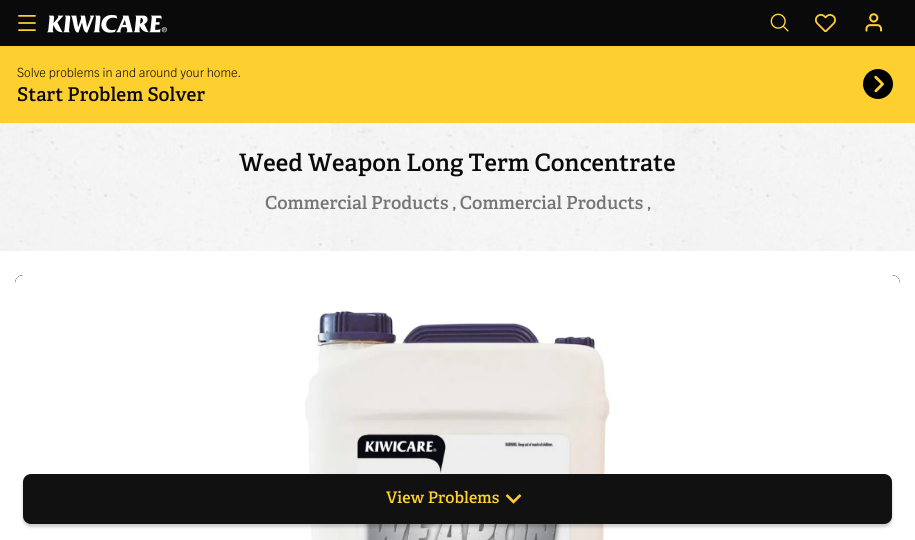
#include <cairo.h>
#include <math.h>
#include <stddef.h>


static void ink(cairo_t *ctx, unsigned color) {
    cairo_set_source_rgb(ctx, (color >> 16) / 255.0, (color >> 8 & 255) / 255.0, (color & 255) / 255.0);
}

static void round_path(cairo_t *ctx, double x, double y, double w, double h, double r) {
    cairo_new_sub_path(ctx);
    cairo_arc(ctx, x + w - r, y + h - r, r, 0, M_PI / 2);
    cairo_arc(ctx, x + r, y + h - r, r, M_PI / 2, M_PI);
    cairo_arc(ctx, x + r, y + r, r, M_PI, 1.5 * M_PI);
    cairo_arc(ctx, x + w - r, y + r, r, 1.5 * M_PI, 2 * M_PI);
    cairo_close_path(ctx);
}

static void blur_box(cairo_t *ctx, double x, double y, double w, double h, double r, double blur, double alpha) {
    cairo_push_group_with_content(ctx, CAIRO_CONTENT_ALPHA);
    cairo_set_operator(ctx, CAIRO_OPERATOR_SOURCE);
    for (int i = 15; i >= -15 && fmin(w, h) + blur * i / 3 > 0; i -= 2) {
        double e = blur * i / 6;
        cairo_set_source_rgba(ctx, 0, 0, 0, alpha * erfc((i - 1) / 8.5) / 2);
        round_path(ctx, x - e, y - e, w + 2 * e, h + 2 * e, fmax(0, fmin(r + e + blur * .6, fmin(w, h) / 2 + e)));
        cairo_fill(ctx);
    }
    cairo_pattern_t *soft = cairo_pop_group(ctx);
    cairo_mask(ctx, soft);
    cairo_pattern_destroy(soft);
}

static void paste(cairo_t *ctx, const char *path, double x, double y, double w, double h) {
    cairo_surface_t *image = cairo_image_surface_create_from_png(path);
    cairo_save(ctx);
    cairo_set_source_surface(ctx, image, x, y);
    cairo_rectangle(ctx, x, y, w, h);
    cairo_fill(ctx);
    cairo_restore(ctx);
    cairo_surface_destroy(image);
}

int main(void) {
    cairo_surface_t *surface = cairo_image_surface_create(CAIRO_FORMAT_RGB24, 915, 540);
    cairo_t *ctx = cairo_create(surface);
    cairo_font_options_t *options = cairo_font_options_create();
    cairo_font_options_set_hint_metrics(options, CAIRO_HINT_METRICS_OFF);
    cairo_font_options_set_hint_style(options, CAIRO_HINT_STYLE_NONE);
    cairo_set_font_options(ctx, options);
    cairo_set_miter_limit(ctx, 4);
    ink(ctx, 0xFFFFFF);
    cairo_paint(ctx);
    ink(ctx, 0x0A0A0A);
    cairo_rectangle(ctx, 0, 0, 915, 46);
    cairo_fill(ctx);
    paste(ctx, "media/1.png", 18, 15, 18, 16);
    paste(ctx, "media/2.png", 47, 15, 120, 18);
    paste(ctx, "media/3.png", 770, 13, 19, 19);
    paste(ctx, "media/4.png", 815, 14, 21, 18);
    paste(ctx, "media/5.png", 865, 13, 18, 19);
    ink(ctx, 0xFED02F);
    cairo_rectangle(ctx, 0, 46, 915, 77);
    cairo_fill(ctx);
    cairo_select_font_face(ctx, "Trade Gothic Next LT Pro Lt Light", CAIRO_FONT_SLANT_NORMAL, CAIRO_FONT_WEIGHT_NORMAL);
    cairo_set_font_size(ctx, 12.75);
    ink(ctx, 0x0A0A0A);
    cairo_move_to(ctx, 17, 77);
    cairo_show_text(ctx, "Solve problems in and around your home.");
    paste(ctx, "media/6.png", 863, 69, 30, 30);
    cairo_select_font_face(ctx, "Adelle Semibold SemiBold", CAIRO_FONT_SLANT_NORMAL, CAIRO_FONT_WEIGHT_NORMAL);
    cairo_set_font_size(ctx, 19);
    cairo_move_to(ctx, 17, 101);
    cairo_show_text(ctx, "Start Problem Solver");
    paste(ctx, "media/7.png", 0, 123, 915, 128);
    cairo_set_font_size(ctx, 24);
    cairo_move_to(ctx, 239, 171);
    cairo_show_text(ctx, "Weed Weapon Long Term Concentrate");
    cairo_set_font_size(ctx, 18);
    ink(ctx, 0x757575);
    cairo_move_to(ctx, 265, 209);
    cairo_show_text(ctx, "Commercial Products , Commercial Products ,");
    ink(ctx, 0x000000);
    round_path(ctx, 15, 275, 885, 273, 8);
    cairo_fill(ctx);
    paste(ctx, "media/8.png", 15, 275, 885, 265);
    ink(ctx, 0x000000);
    blur_box(ctx, 23, 477, 869, 50, 8, 1.5, 0.2);
    ink(ctx, 0x111111);
    round_path(ctx, 23, 474, 869, 50, 8);
    cairo_fill(ctx);
    cairo_set_font_size(ctx, 16);
    ink(ctx, 0xFED02F);
    cairo_move_to(ctx, 386, 503);
    cairo_show_text(ctx, "View Problems");
    paste(ctx, "media/9.png", 505, 494, 17, 10);
    cairo_surface_write_to_png(surface, "image.png");
    cairo_font_options_destroy(options);
    cairo_destroy(ctx);
    cairo_surface_destroy(surface);
    return 0;
}
